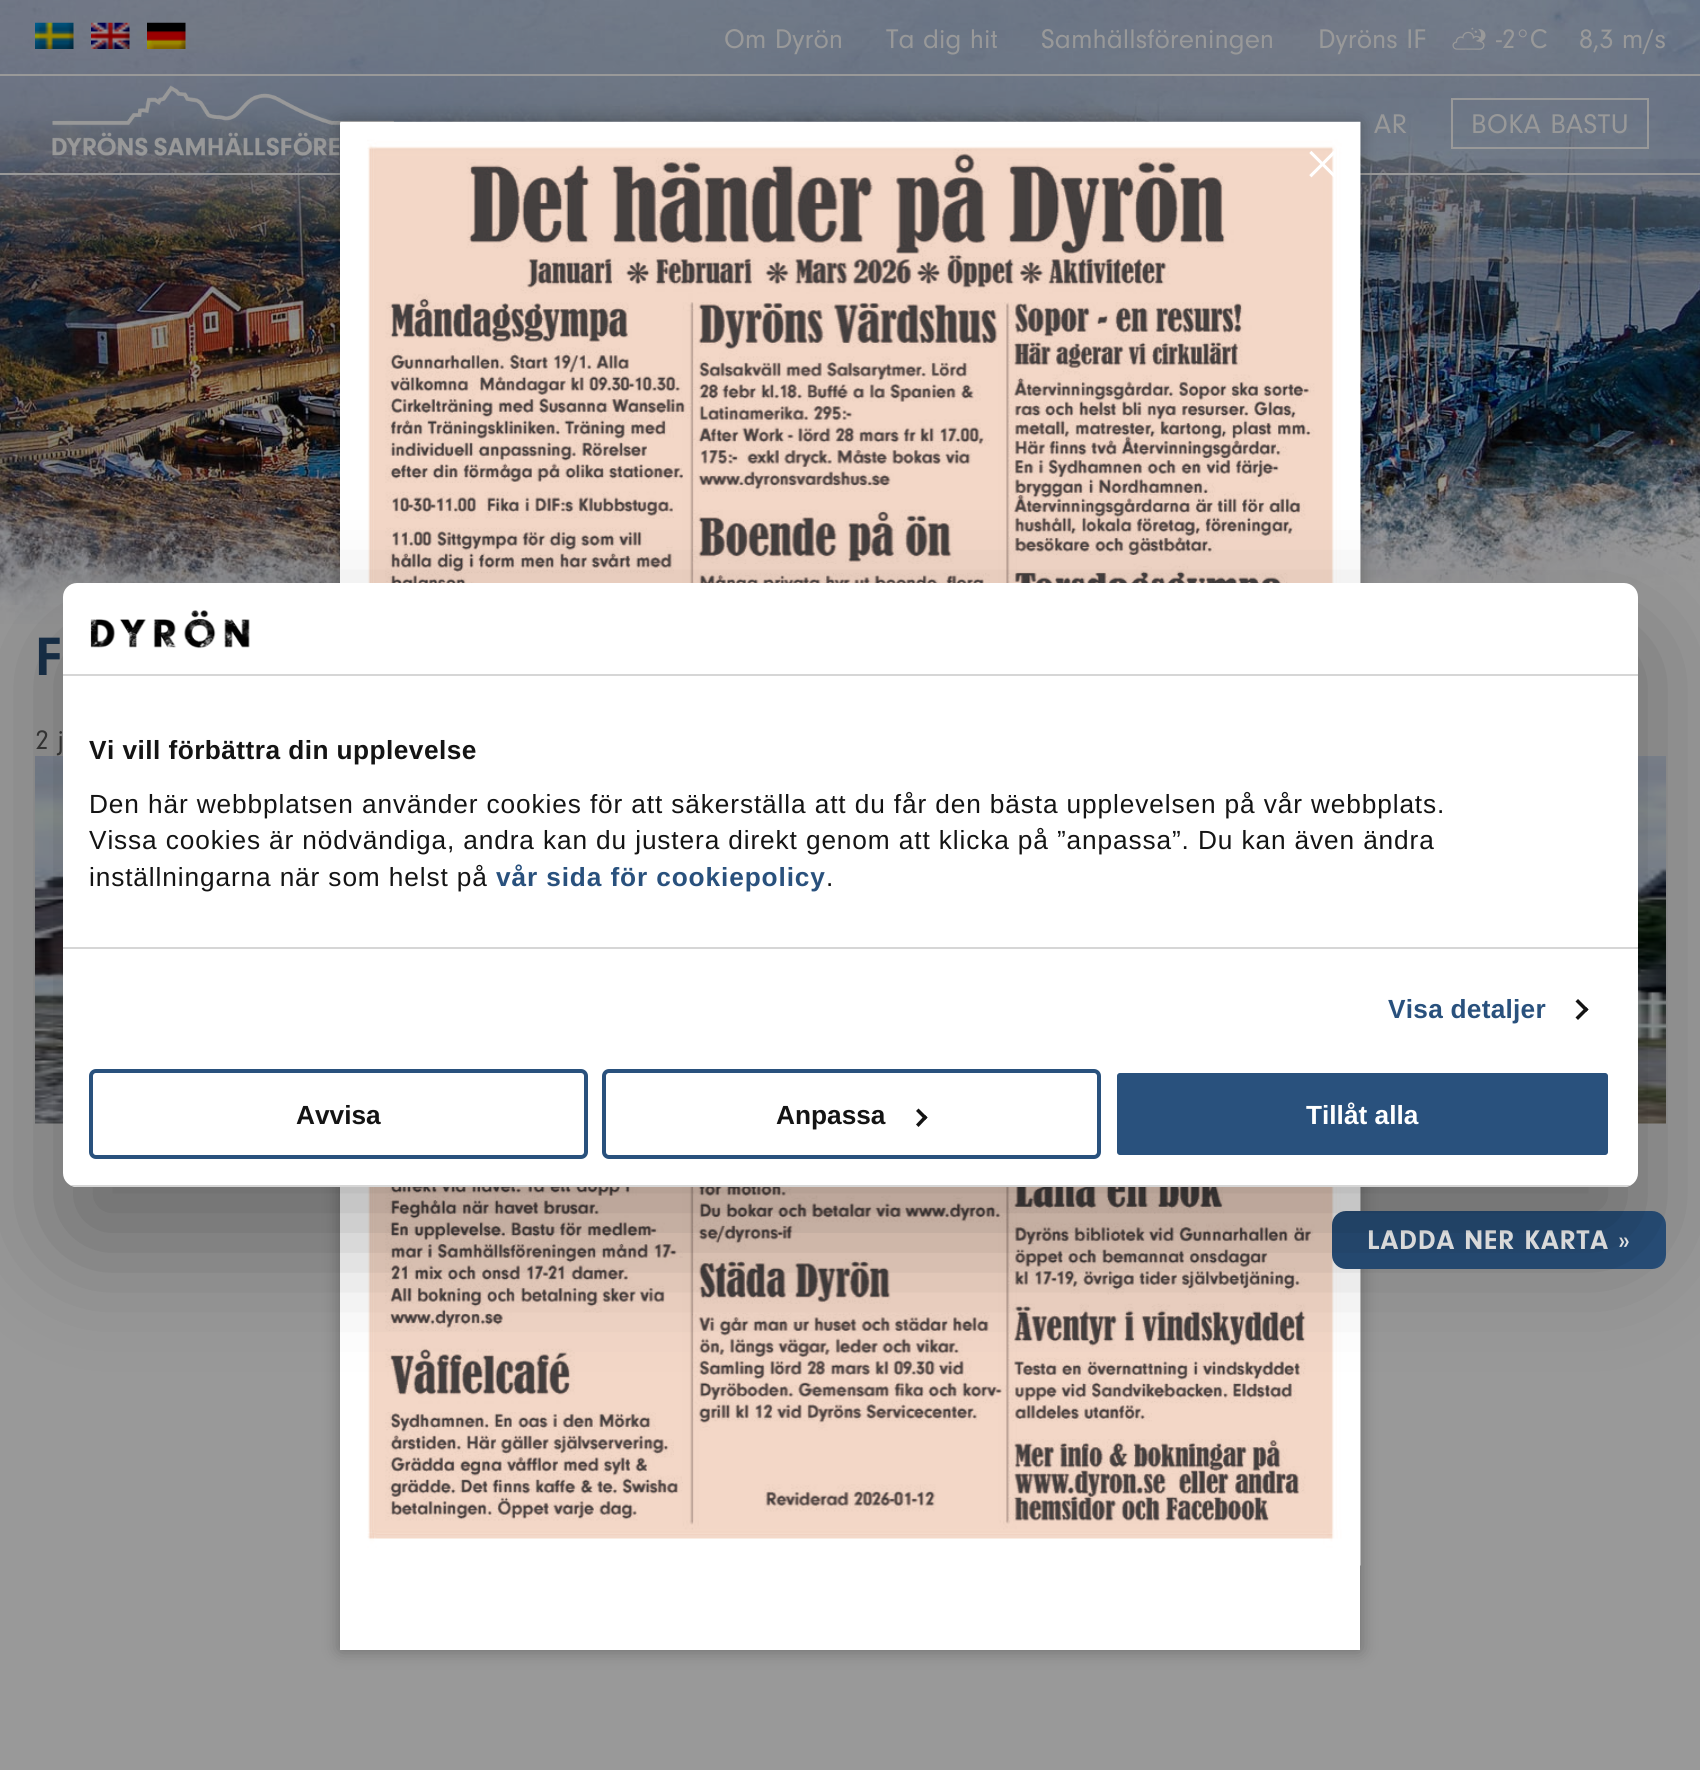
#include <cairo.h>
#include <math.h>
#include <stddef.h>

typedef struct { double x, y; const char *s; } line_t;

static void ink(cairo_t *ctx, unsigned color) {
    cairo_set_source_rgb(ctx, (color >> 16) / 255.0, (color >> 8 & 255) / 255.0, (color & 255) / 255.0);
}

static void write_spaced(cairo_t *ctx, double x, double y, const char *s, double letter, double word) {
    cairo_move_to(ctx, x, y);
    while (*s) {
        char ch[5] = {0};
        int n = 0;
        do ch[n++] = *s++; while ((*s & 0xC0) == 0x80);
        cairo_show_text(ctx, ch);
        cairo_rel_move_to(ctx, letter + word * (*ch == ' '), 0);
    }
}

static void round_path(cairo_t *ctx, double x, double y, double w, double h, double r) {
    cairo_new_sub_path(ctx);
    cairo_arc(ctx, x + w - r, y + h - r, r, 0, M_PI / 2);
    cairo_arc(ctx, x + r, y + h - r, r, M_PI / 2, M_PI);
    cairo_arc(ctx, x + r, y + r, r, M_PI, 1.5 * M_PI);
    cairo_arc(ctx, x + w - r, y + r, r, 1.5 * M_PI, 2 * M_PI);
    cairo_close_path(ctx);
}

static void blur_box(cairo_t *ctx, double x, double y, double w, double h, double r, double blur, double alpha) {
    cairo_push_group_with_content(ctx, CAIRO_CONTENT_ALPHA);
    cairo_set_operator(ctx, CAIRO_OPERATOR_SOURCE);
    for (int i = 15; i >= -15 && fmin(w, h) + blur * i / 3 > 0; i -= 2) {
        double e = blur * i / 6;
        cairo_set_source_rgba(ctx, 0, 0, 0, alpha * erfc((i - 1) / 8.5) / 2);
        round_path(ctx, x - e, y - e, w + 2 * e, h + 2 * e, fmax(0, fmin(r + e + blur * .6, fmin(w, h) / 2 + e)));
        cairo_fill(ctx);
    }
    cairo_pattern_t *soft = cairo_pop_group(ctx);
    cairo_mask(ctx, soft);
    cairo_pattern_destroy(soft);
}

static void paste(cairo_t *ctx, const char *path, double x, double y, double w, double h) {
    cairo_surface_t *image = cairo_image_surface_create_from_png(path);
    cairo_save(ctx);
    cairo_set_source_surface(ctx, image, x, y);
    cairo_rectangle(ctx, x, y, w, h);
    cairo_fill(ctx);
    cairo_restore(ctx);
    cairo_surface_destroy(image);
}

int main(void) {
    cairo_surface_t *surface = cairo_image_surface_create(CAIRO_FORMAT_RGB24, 1700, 1770);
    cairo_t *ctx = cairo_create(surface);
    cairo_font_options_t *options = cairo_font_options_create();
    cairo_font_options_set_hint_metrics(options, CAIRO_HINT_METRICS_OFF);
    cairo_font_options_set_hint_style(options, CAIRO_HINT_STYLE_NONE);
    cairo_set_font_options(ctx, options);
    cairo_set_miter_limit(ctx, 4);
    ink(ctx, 0x999999);
    cairo_paint(ctx);
    paste(ctx, "media/1.png", 0, 0, 1700, 624);
    paste(ctx, "media/2.png", 35, 22, 39, 27);
    paste(ctx, "media/3.png", 91, 22, 39, 27);
    paste(ctx, "media/4.png", 147, 22, 39, 27);
    cairo_select_font_face(ctx, "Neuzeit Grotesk", CAIRO_FONT_SLANT_NORMAL, CAIRO_FONT_WEIGHT_NORMAL);
    cairo_set_font_size(ctx, 28);
    ink(ctx, 0x999999);
    {
        static const line_t items[] = {
            {724, 48, "Om Dyrön"},
            {886, 48, "Ta dig hit"},
            {1041, 48, "Samhällsföreningen"},
            {1318, 48, "Dyröns IF"},
        };
        for (size_t i = 0; i < sizeof items / sizeof *items; i++) {
            cairo_move_to(ctx, items[i].x, items[i].y);
            cairo_show_text(ctx, items[i].s);
        }
    }
    paste(ctx, "media/5.png", 1452, 27, 34, 23);
    cairo_move_to(ctx, 1496, 48);
    cairo_show_text(ctx, "-2°C");
    cairo_move_to(ctx, 1579, 48);
    cairo_show_text(ctx, "8,3 m/s");
    cairo_rectangle(ctx, 0, 74, 1700, 2);
    cairo_fill(ctx);
    cairo_rectangle(ctx, 0, 173, 1700, 2);
    cairo_fill(ctx);
    paste(ctx, "media/6.png", 52, 85, 342, 71);
    write_spaced(ctx, 1374, 133, "AR", 0.5, 0);
    cairo_rectangle(ctx, 1452, 99, 196, 49);
    cairo_stroke(ctx);
    write_spaced(ctx, 1471, 133, "BOKA BASTU", 0.5, 0);
    cairo_select_font_face(ctx, "Neuzeit Grotesk", CAIRO_FONT_SLANT_NORMAL, CAIRO_FONT_WEIGHT_BOLD);
    cairo_set_font_size(ctx, 56);
    ink(ctx, 0x19314B);
    write_spaced(ctx, 35, 675, "F", 4, 0);
    cairo_select_font_face(ctx, "Neuzeit Grotesk", CAIRO_FONT_SLANT_NORMAL, CAIRO_FONT_WEIGHT_NORMAL);
    cairo_set_font_size(ctx, 28);
    ink(ctx, 0x393939);
    cairo_move_to(ctx, 35, 749);
    cairo_show_text(ctx, "2 j");
    paste(ctx, "media/7.png", 35, 756, 1631, 368);
    ink(ctx, 0x000000);
    blur_box(ctx, 340, 123, 1020, 1527, 0, 9, 0.3);
    ink(ctx, 0xFFFFFF);
    cairo_rectangle(ctx, 340, 123, 1020, 1527);
    cairo_fill(ctx);
    paste(ctx, "media/8.png", 340, 121, 1021, 1445);
    cairo_set_font_size(ctx, 70);
    cairo_move_to(ctx, 1305, 188);
    cairo_show_text(ctx, "×");
    ink(ctx, 0x29517D);
    round_path(ctx, 1332, 1211, 334, 58, 14);
    cairo_fill(ctx);
    cairo_select_font_face(ctx, "Neuzeit Grotesk", CAIRO_FONT_SLANT_NORMAL, CAIRO_FONT_WEIGHT_BOLD);
    cairo_set_font_size(ctx, 28);
    ink(ctx, 0xFFFFFF);
    write_spaced(ctx, 1367, 1249, "LADDA NER KARTA »", 0.8, 0);
    ink(ctx, 0x000000);
    blur_box(ctx, 63, 639, 1575, 604, 14, 59.5, 0.3);
    ink(ctx, 0xFFFFFF);
    round_path(ctx, 63, 583, 1575, 604, 14);
    cairo_fill(ctx);
    ink(ctx, 0xD6D6D6);
    cairo_rectangle(ctx, 63, 674, 1575, 2);
    cairo_fill(ctx);
    paste(ctx, "media/9.png", 90, 610, 160, 39);
    cairo_rectangle(ctx, 63, 947, 1575, 2);
    cairo_fill(ctx);
    cairo_select_font_face(ctx, "Liberation Sans", CAIRO_FONT_SLANT_NORMAL, CAIRO_FONT_WEIGHT_BOLD);
    cairo_set_font_size(ctx, 26.25);
    ink(ctx, 0x141414);
    write_spaced(ctx, 89, 759, "Vi vill förbättra din upplevelse", 0.45, 0);
    cairo_select_font_face(ctx, "Liberation Sans", CAIRO_FONT_SLANT_NORMAL, CAIRO_FONT_WEIGHT_NORMAL);
    {
        static const line_t items[] = {
            {89, 813, "Den här webbplatsen använder cookies för att säkerställa att du får den bästa upplevelsen på vår webbplats."},
            {89, 849, "Vissa cookies är nödvändiga, andra kan du justera direkt genom att klicka på ”anpassa”. Du kan även ändra"},
            {89, 886, "inställningarna när som helst på"},
        };
        for (size_t i = 0; i < sizeof items / sizeof *items; i++) {
            write_spaced(ctx, items[i].x, items[i].y, items[i].s, 0.88, 0);
        }
    }
    cairo_select_font_face(ctx, "Liberation Sans", CAIRO_FONT_SLANT_NORMAL, CAIRO_FONT_WEIGHT_BOLD);
    ink(ctx, 0x29517D);
    write_spaced(ctx, 496, 886, "vår sida för cookiepolicy", 0.88, 0);
    cairo_select_font_face(ctx, "Liberation Sans", CAIRO_FONT_SLANT_NORMAL, CAIRO_FONT_WEIGHT_NORMAL);
    ink(ctx, 0x141414);
    write_spaced(ctx, 826, 886, ".", 0.88, 0);
    cairo_select_font_face(ctx, "Liberation Sans", CAIRO_FONT_SLANT_NORMAL, CAIRO_FONT_WEIGHT_BOLD);
    ink(ctx, 0x29517D);
    write_spaced(ctx, 1388, 1018, "Visa detaljer", 0.25, 0);
    ink(ctx, 0x141414);
    cairo_new_path(ctx);
    cairo_move_to(ctx, 1578, 999);
    cairo_line_to(ctx, 1588.5, 1009.5);
    cairo_line_to(ctx, 1586, 1012);
    cairo_line_to(ctx, 1575.5, 1001.5);
    cairo_close_path(ctx);
    cairo_fill(ctx);
    cairo_new_path(ctx);
    cairo_move_to(ctx, 1586, 1007);
    cairo_line_to(ctx, 1588.5, 1009.5);
    cairo_line_to(ctx, 1578, 1020);
    cairo_line_to(ctx, 1575.5, 1017.5);
    cairo_close_path(ctx);
    cairo_fill(ctx);
    cairo_save(ctx);
    round_path(ctx, 63, 583, 1575, 604, 14);
    cairo_clip(ctx);
    ink(ctx, 0xD6D6D6);
    cairo_rectangle(ctx, 63, 1185, 1575, 2);
    cairo_fill(ctx);
    cairo_restore(ctx);
    round_path(ctx, 91, 1071, 495, 86, 5);
    ink(ctx, 0x29517D);
    cairo_set_line_width(ctx, 4);
    cairo_stroke(ctx);
    ink(ctx, 0x141414);
    cairo_move_to(ctx, 296, 1124);
    cairo_show_text(ctx, "Avvisa");
    round_path(ctx, 604, 1071, 495, 86, 5);
    ink(ctx, 0x29517D);
    cairo_stroke(ctx);
    ink(ctx, 0x141414);
    cairo_move_to(ctx, 776, 1124);
    cairo_show_text(ctx, "Anpassa");
    cairo_new_path(ctx);
    cairo_move_to(ctx, 918.5, 1108.5);
    cairo_line_to(ctx, 927.5, 1117.5);
    cairo_line_to(ctx, 925, 1120);
    cairo_line_to(ctx, 916, 1111);
    cairo_close_path(ctx);
    cairo_fill(ctx);
    cairo_new_path(ctx);
    cairo_move_to(ctx, 925, 1115);
    cairo_line_to(ctx, 927.5, 1117.5);
    cairo_line_to(ctx, 918.5, 1127);
    cairo_line_to(ctx, 916, 1124.5);
    cairo_close_path(ctx);
    cairo_fill(ctx);
    ink(ctx, 0x29517D);
    round_path(ctx, 1115, 1071, 495, 86, 5);
    cairo_fill_preserve(ctx);
    ink(ctx, 0xFFFFFF);
    cairo_stroke(ctx);
    cairo_move_to(ctx, 1306, 1124);
    cairo_show_text(ctx, "Tillåt alla");
    cairo_surface_write_to_png(surface, "image.png");
    cairo_font_options_destroy(options);
    cairo_destroy(ctx);
    cairo_surface_destroy(surface);
    return 0;
}
